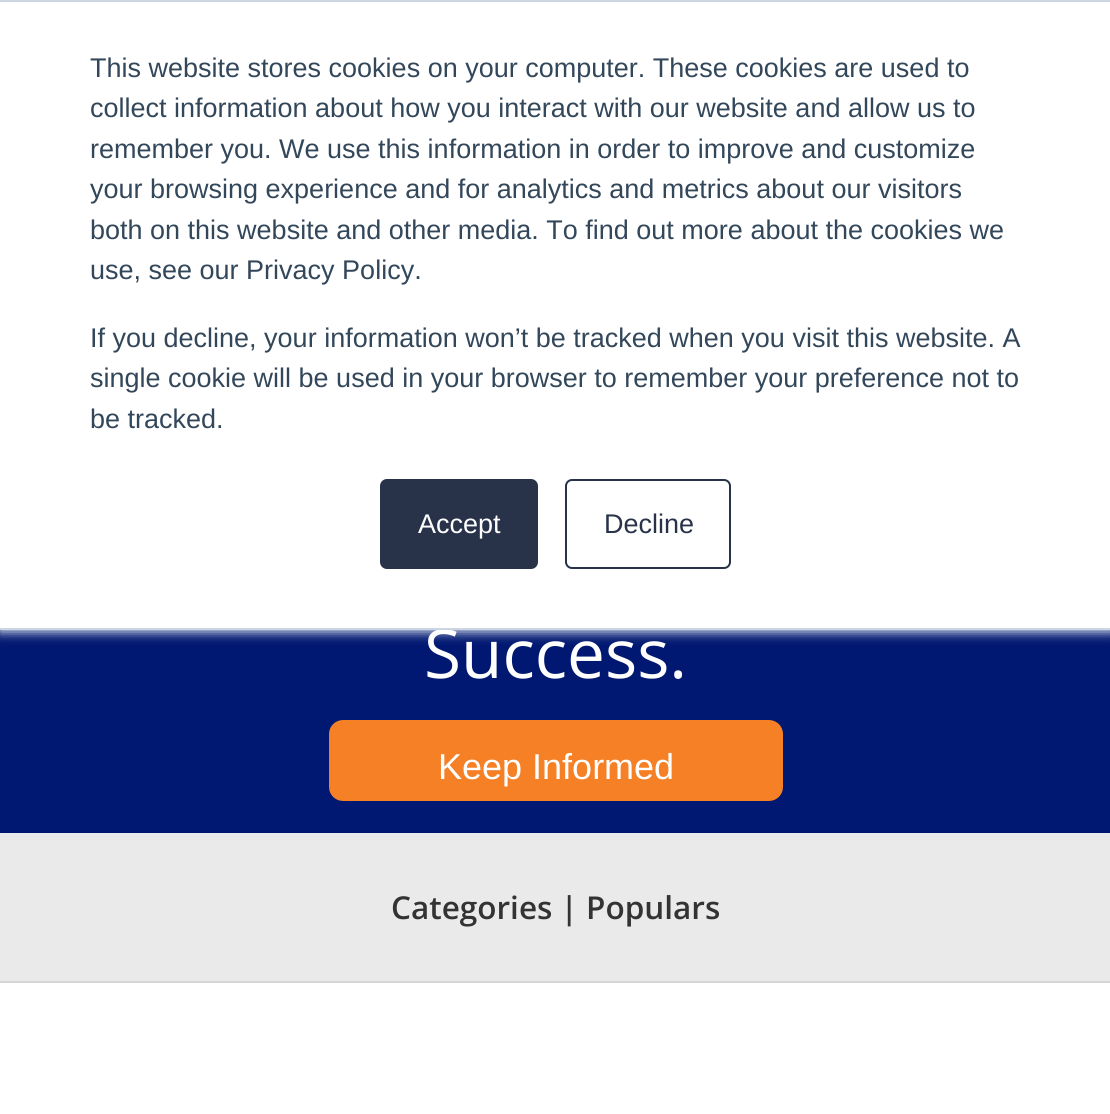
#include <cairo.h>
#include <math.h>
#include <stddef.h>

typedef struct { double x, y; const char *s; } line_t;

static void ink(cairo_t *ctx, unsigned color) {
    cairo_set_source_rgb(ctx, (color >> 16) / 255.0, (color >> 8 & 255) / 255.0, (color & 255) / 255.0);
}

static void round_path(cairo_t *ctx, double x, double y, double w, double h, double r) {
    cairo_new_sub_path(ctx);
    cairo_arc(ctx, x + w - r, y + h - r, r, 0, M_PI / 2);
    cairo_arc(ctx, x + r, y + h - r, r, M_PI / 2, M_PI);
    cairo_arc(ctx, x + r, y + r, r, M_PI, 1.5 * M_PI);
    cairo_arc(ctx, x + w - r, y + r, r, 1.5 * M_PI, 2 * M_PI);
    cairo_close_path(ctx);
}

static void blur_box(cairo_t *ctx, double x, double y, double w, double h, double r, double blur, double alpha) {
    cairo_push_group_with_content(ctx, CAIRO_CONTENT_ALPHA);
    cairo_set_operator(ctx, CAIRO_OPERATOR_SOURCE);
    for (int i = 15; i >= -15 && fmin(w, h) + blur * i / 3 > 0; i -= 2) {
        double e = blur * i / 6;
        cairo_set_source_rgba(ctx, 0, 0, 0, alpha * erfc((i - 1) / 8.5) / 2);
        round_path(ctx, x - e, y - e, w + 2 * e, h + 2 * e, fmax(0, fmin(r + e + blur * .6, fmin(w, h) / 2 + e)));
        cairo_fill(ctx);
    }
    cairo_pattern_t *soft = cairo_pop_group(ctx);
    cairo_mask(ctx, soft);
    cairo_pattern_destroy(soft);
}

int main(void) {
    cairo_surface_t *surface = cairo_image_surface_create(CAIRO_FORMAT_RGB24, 1110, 1114);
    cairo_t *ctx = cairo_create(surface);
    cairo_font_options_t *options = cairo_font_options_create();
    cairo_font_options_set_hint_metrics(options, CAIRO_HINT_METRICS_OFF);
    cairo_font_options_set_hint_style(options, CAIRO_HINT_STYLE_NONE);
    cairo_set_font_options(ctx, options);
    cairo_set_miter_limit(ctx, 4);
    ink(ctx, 0xFFFFFF);
    cairo_paint(ctx);
    ink(ctx, 0x001871);
    cairo_rectangle(ctx, 0, 630, 1110, 203);
    cairo_fill(ctx);
    ink(ctx, 0xEAF0F6);
    blur_box(ctx, 0, 2, 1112, 630, 0, 5.5, 1);
    ink(ctx, 0xFFFFFF);
    cairo_rectangle(ctx, 0, 2, 1110, 626);
    cairo_fill(ctx);
    ink(ctx, 0xCBD6E2);
    cairo_rectangle(ctx, 0, 0, 1110, 2);
    cairo_fill(ctx);
    cairo_select_font_face(ctx, "Open Sans", CAIRO_FONT_SLANT_NORMAL, CAIRO_FONT_WEIGHT_NORMAL);
    cairo_set_font_size(ctx, 67.5);
    ink(ctx, 0xFFFFFF);
    cairo_move_to(ctx, 424, 678);
    cairo_show_text(ctx, "Success.");
    ink(ctx, 0xCBD6E2);
    cairo_rectangle(ctx, 0, 628, 1110, 2);
    cairo_fill(ctx);
    cairo_select_font_face(ctx, "Liberation Sans", CAIRO_FONT_SLANT_NORMAL, CAIRO_FONT_WEIGHT_NORMAL);
    cairo_set_font_size(ctx, 27);
    ink(ctx, 0x33475B);
    {
        static const line_t items[] = {
            {90, 77, "This website stores cookies on your computer. These cookies are used to"},
            {90, 117, "collect information about how you interact with our website and allow us to"},
            {90, 158, "remember you. We use this information in order to improve and customize"},
            {90, 198, "your browsing experience and for analytics and metrics about our visitors"},
            {90, 239, "both on this website and other media. To find out more about the cookies we"},
            {90, 279, "use, see our Privacy Policy."},
            {90, 347, "If you decline, your information won’t be tracked when you visit this website. A"},
            {90, 387, "single cookie will be used in your browser to remember your preference not to"},
            {90, 428, "be tracked."},
        };
        for (size_t i = 0; i < sizeof items / sizeof *items; i++) {
            cairo_move_to(ctx, items[i].x, items[i].y);
            cairo_show_text(ctx, items[i].s);
        }
    }
    ink(ctx, 0x28334A);
    round_path(ctx, 381, 480, 156, 88, 6);
    cairo_fill_preserve(ctx);
    cairo_stroke(ctx);
    ink(ctx, 0xFFFFFF);
    cairo_move_to(ctx, 418, 533);
    cairo_show_text(ctx, "Accept");
    round_path(ctx, 566, 480, 164, 88, 6);
    ink(ctx, 0x28334A);
    cairo_stroke(ctx);
    cairo_move_to(ctx, 604, 533);
    cairo_show_text(ctx, "Decline");
    ink(ctx, 0xF58025);
    round_path(ctx, 329, 720, 454, 81, 14);
    cairo_fill(ctx);
    cairo_set_font_size(ctx, 36);
    ink(ctx, 0xFFFFFF);
    cairo_move_to(ctx, 438, 779);
    cairo_show_text(ctx, "Keep Informed");
    ink(ctx, 0xEAEAEA);
    cairo_rectangle(ctx, 0, 833, 1110, 148);
    cairo_fill(ctx);
    ink(ctx, 0xD7D5D5);
    cairo_rectangle(ctx, 0, 981, 1110, 2);
    cairo_fill(ctx);
    cairo_select_font_face(ctx, "Open Sans SemiBold", CAIRO_FONT_SLANT_NORMAL, CAIRO_FONT_WEIGHT_NORMAL);
    cairo_set_font_size(ctx, 31.5);
    ink(ctx, 0x333333);
    cairo_move_to(ctx, 391, 919);
    cairo_show_text(ctx, "Categories | Populars");
    cairo_surface_write_to_png(surface, "image.png");
    cairo_font_options_destroy(options);
    cairo_destroy(ctx);
    cairo_surface_destroy(surface);
    return 0;
}
